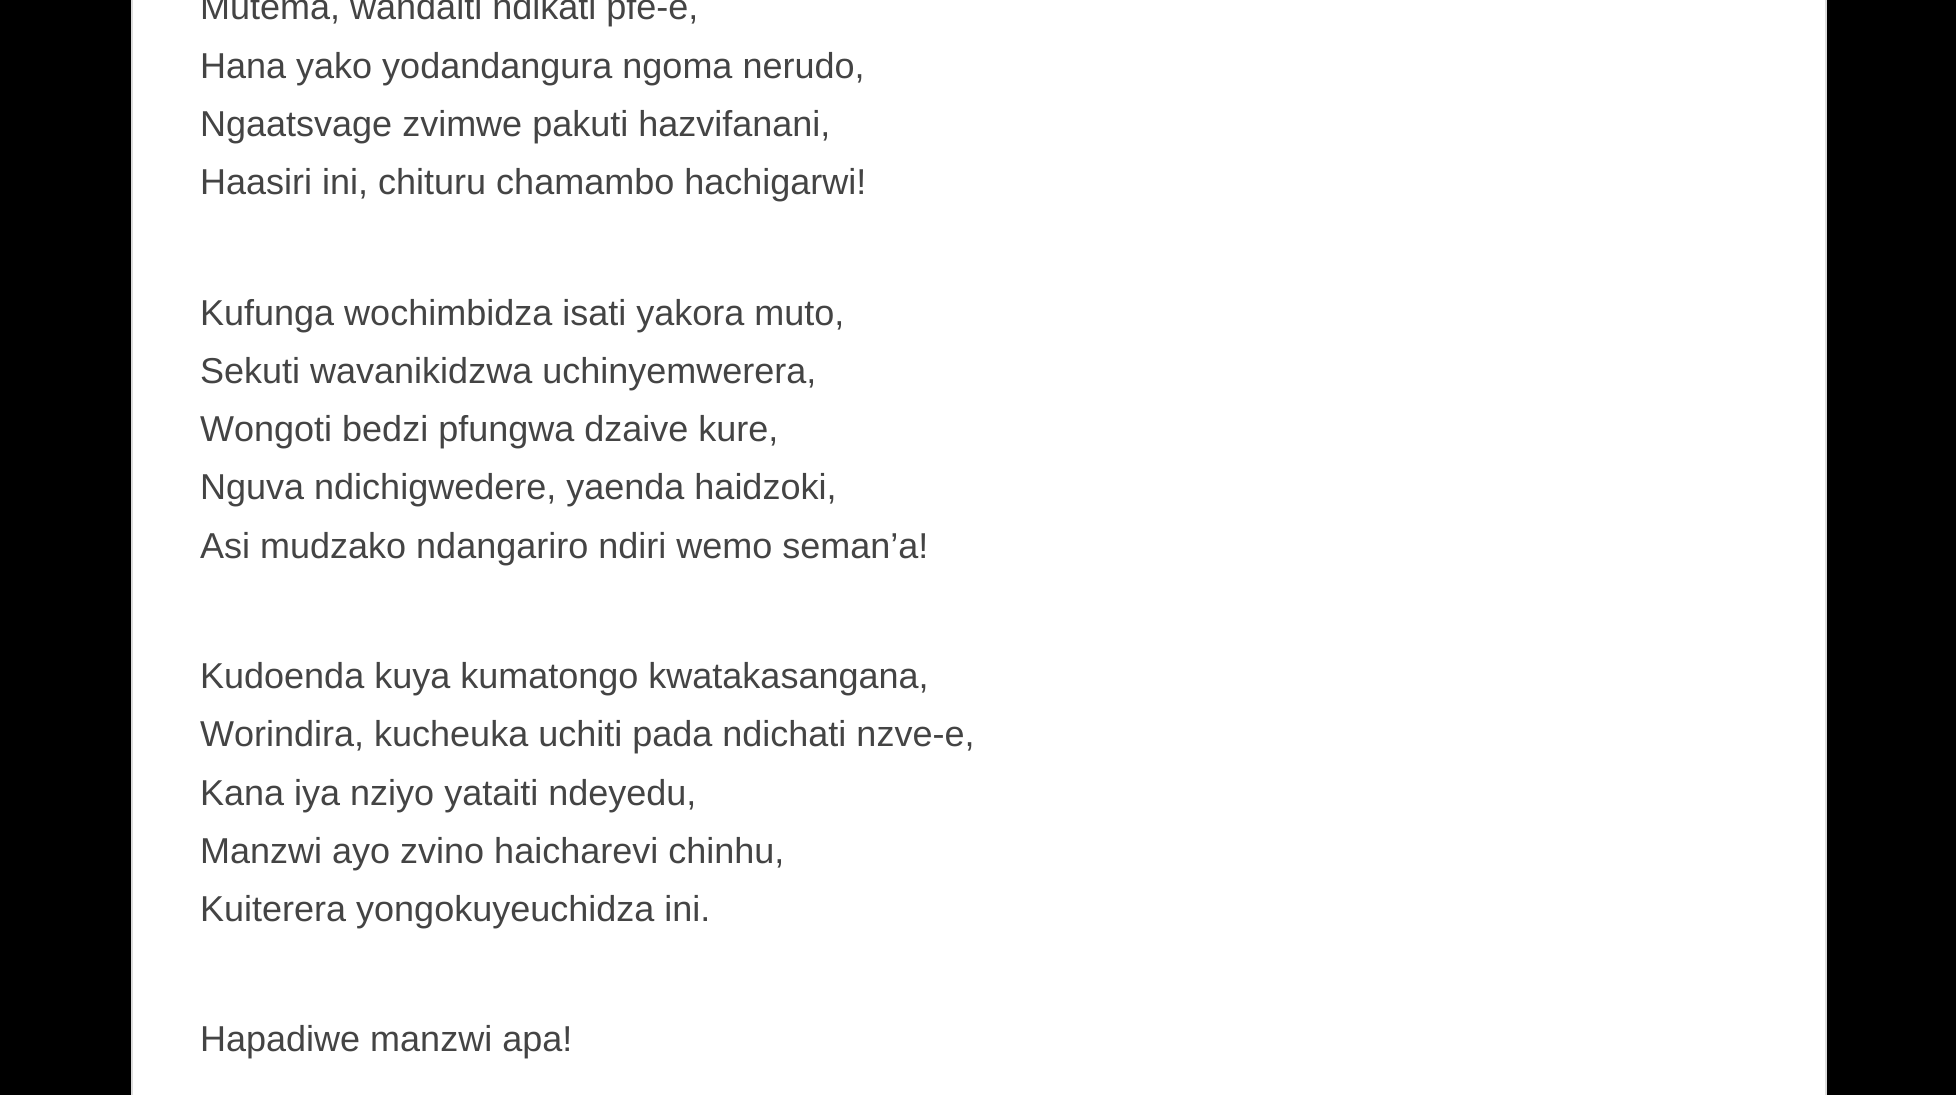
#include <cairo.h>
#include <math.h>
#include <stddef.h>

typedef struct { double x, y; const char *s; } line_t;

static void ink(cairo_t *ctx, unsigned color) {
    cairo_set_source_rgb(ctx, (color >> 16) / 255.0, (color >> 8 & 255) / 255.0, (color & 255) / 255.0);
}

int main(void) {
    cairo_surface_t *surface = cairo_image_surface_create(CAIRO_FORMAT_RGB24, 1956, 1095);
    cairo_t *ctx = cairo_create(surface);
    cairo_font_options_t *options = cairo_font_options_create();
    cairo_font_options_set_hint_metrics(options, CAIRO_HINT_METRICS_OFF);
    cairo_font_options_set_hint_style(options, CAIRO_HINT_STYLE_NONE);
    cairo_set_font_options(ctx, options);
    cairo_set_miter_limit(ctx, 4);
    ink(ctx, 0x000000);
    cairo_paint(ctx);
    ink(ctx, 0xFFFFFF);
    cairo_rectangle(ctx, 132, -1, 1694, 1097);
    cairo_fill_preserve(ctx);
    ink(ctx, 0xDDDDDD);
    cairo_stroke(ctx);
    cairo_select_font_face(ctx, "Liberation Sans", CAIRO_FONT_SLANT_NORMAL, CAIRO_FONT_WEIGHT_NORMAL);
    cairo_set_font_size(ctx, 36);
    ink(ctx, 0x444444);
    {
        static const line_t items[] = {
            {200, 19, "Mutema, wandaiti ndikati pfe-e,"},
            {200, 78, "Hana yako yodandangura ngoma nerudo,"},
            {200, 136, "Ngaatsvage zvimwe pakuti hazvifanani,"},
            {200, 194, "Haasiri ini, chituru chamambo hachigarwi!"},
            {200, 325, "Kufunga wochimbidza isati yakora muto,"},
            {200, 383, "Sekuti wavanikidzwa uchinyemwerera,"},
            {200, 441, "Wongoti bedzi pfungwa dzaive kure,"},
            {200, 499, "Nguva ndichigwedere, yaenda haidzoki,"},
            {200, 558, "Asi mudzako ndangariro ndiri wemo seman’a!"},
            {200, 688, "Kudoenda kuya kumatongo kwatakasangana,"},
            {200, 746, "Worindira, kucheuka uchiti pada ndichati nzve-e,"},
            {200, 805, "Kana iya nziyo yataiti ndeyedu,"},
            {200, 863, "Manzwi ayo zvino haicharevi chinhu,"},
            {200, 921, "Kuiterera yongokuyeuchidza ini."},
            {200, 1051, "Hapadiwe manzwi apa!"},
        };
        for (size_t i = 0; i < sizeof items / sizeof *items; i++) {
            cairo_move_to(ctx, items[i].x, items[i].y);
            cairo_show_text(ctx, items[i].s);
        }
    }
    cairo_surface_write_to_png(surface, "image.png");
    cairo_font_options_destroy(options);
    cairo_destroy(ctx);
    cairo_surface_destroy(surface);
    return 0;
}
